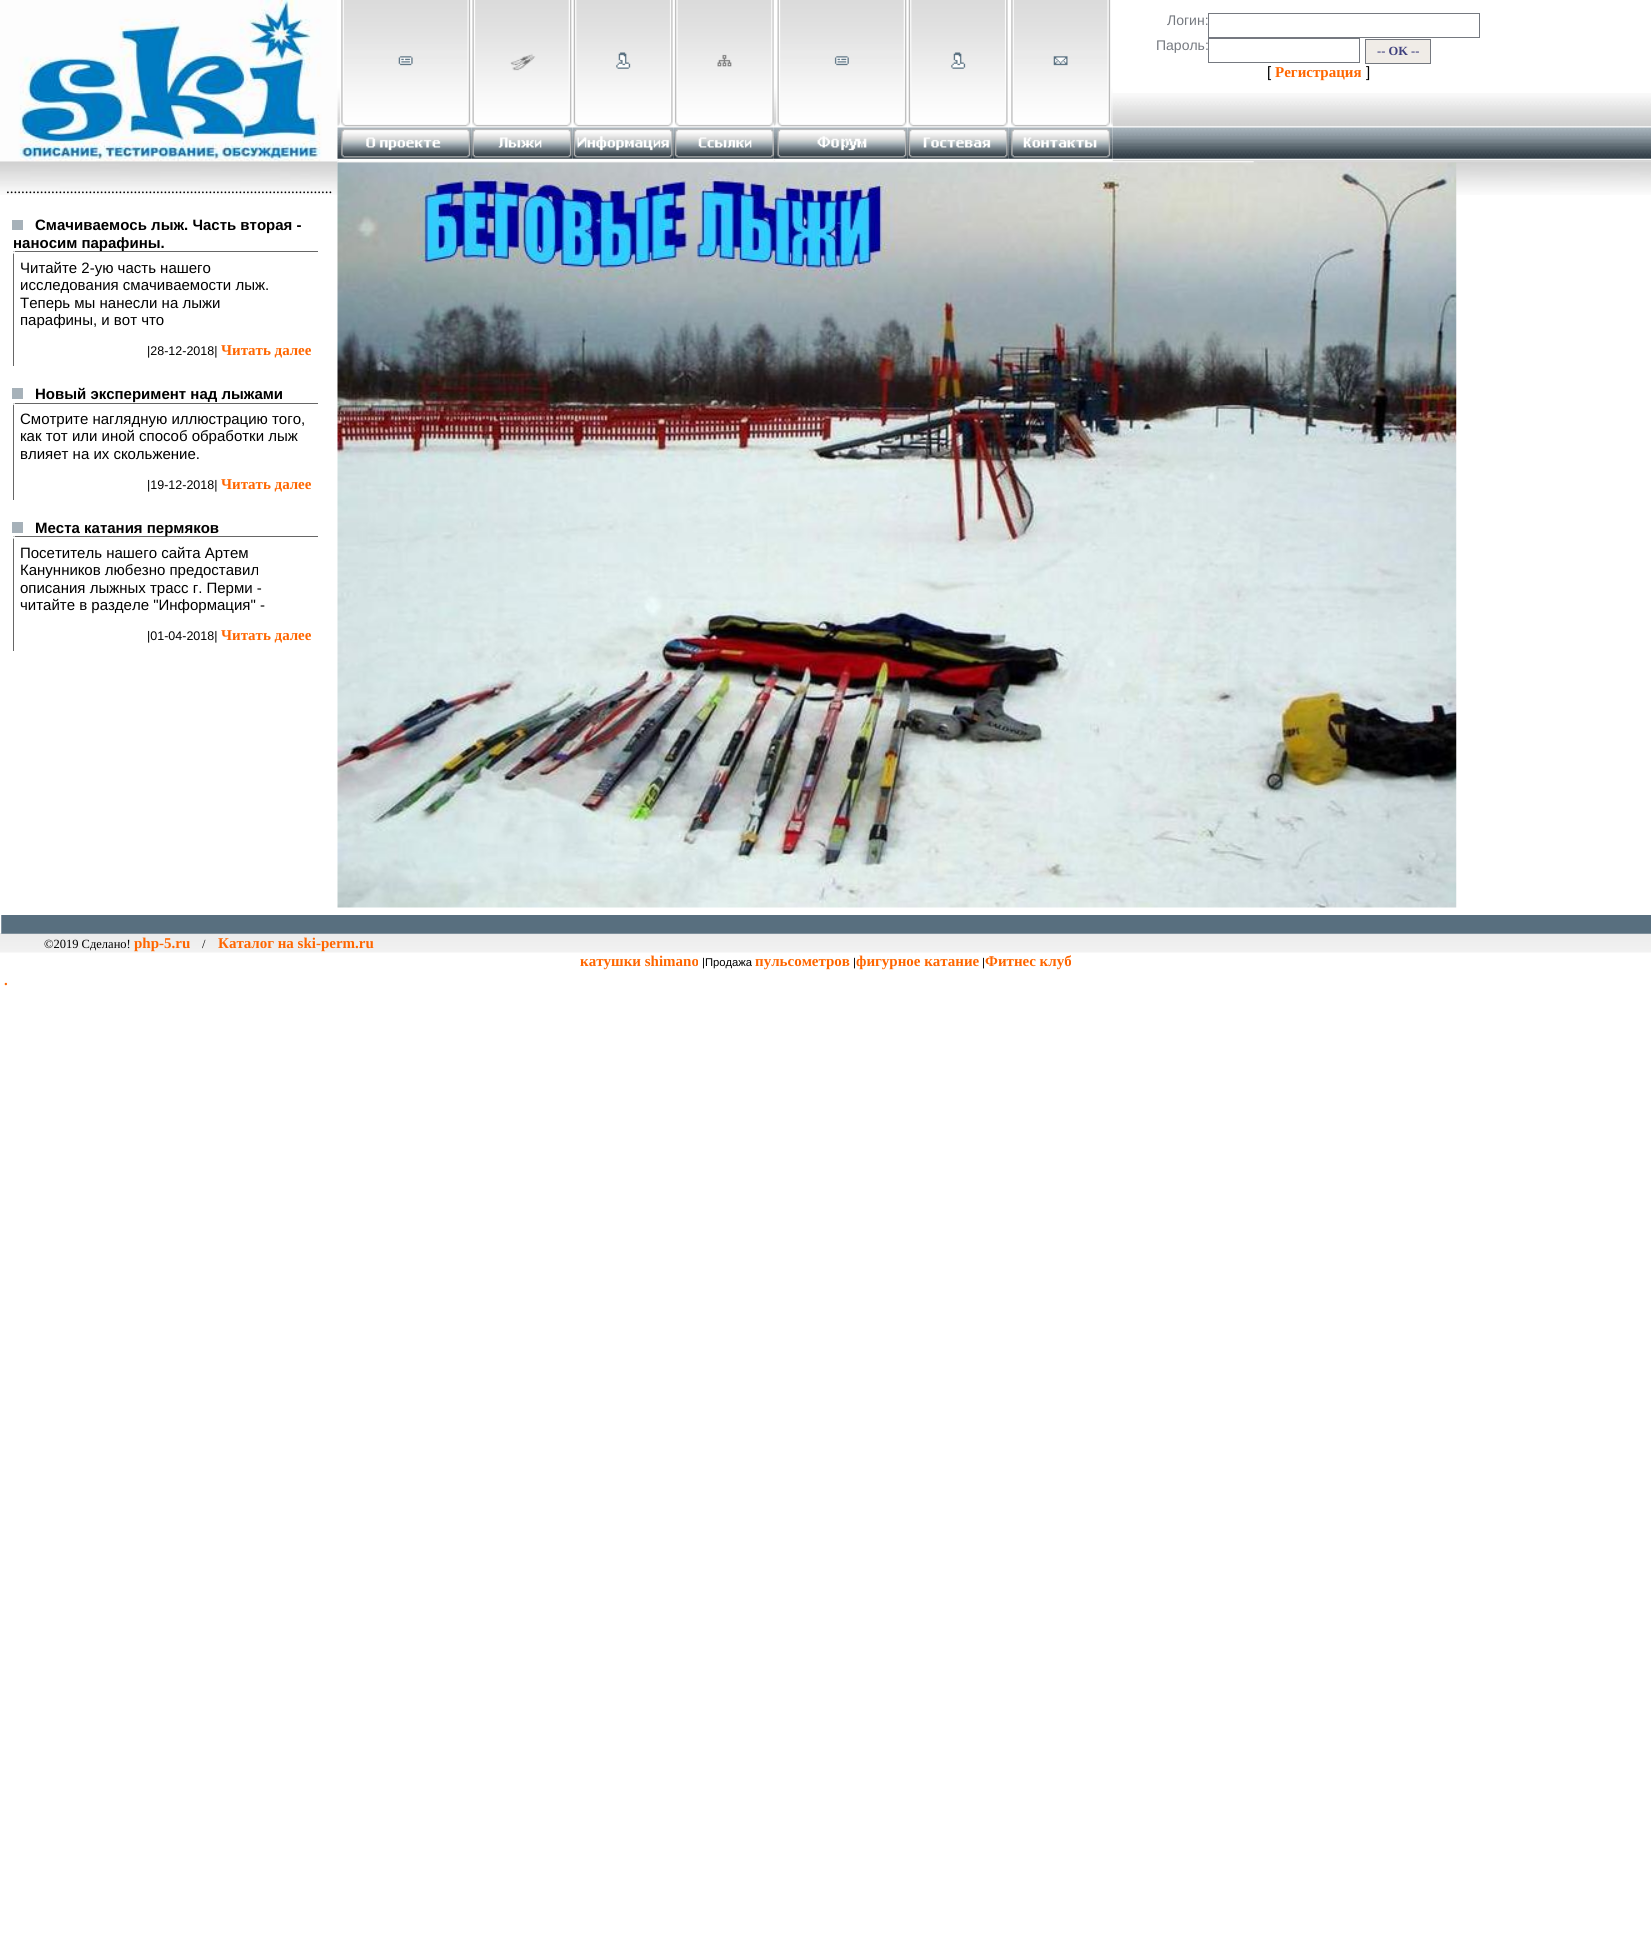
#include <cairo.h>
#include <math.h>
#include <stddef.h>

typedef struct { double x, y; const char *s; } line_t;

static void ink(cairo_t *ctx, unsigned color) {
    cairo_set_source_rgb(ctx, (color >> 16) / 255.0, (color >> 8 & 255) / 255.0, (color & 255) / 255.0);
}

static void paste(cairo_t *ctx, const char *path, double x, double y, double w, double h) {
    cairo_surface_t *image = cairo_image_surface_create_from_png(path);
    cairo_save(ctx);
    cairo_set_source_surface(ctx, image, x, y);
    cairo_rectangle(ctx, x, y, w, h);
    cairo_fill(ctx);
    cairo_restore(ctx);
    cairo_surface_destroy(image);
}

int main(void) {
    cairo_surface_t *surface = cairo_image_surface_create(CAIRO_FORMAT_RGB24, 1651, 1936);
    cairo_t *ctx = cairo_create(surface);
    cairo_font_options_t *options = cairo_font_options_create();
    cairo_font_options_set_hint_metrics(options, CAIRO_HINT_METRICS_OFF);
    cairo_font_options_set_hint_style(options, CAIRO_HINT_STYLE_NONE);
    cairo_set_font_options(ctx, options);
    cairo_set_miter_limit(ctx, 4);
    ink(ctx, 0xFFFFFF);
    cairo_paint(ctx);
    paste(ctx, "media/10.png", 0, 161, 338, 34);
    paste(ctx, "media/1.png", 0, 0, 337, 162);
    paste(ctx, "media/9.png", 1112, 93, 539, 69);
    paste(ctx, "media/13.png", 337, 161, 1314, 34);
    paste(ctx, "media/2.png", 337, 0, 135, 162);
    paste(ctx, "media/3.png", 471, 0, 102, 162);
    paste(ctx, "media/4.png", 572, 0, 102, 162);
    paste(ctx, "media/5.png", 673, 0, 101, 162);
    paste(ctx, "media/6.png", 773, 0, 135, 162);
    paste(ctx, "media/7.png", 907, 0, 102, 162);
    paste(ctx, "media/8.png", 1008, 0, 105, 162);
    cairo_select_font_face(ctx, "Liberation Sans", CAIRO_FONT_SLANT_NORMAL, CAIRO_FONT_WEIGHT_NORMAL);
    cairo_set_font_size(ctx, 14);
    ink(ctx, 0x757980);
    cairo_move_to(ctx, 1167, 25);
    cairo_show_text(ctx, "Логин:");
    cairo_rectangle(ctx, 1208.5, 13.5, 271, 24);
    cairo_set_line_width(ctx, 1);
    cairo_stroke(ctx);
    cairo_move_to(ctx, 1156, 50);
    cairo_show_text(ctx, "Пароль:");
    cairo_rectangle(ctx, 1208.5, 38.5, 151, 24);
    cairo_stroke(ctx);
    ink(ctx, 0xF0ECE7);
    cairo_rectangle(ctx, 1365.5, 39.5, 65, 24);
    cairo_fill_preserve(ctx);
    ink(ctx, 0x757980);
    cairo_stroke(ctx);
    cairo_select_font_face(ctx, "Liberation Serif", CAIRO_FONT_SLANT_NORMAL, CAIRO_FONT_WEIGHT_BOLD);
    cairo_set_font_size(ctx, 12.5);
    ink(ctx, 0x40417E);
    cairo_move_to(ctx, 1377, 55);
    cairo_show_text(ctx, "-- OK --");
    cairo_select_font_face(ctx, "Liberation Sans", CAIRO_FONT_SLANT_NORMAL, CAIRO_FONT_WEIGHT_NORMAL);
    cairo_set_font_size(ctx, 15);
    ink(ctx, 0x000000);
    cairo_move_to(ctx, 1267, 77);
    cairo_show_text(ctx, "[");
    cairo_select_font_face(ctx, "Liberation Serif", CAIRO_FONT_SLANT_NORMAL, CAIRO_FONT_WEIGHT_BOLD);
    ink(ctx, 0xFF6600);
    cairo_move_to(ctx, 1275, 77);
    cairo_show_text(ctx, "Регистрация");
    cairo_select_font_face(ctx, "Liberation Sans", CAIRO_FONT_SLANT_NORMAL, CAIRO_FONT_WEIGHT_NORMAL);
    ink(ctx, 0x000000);
    cairo_move_to(ctx, 1366, 77);
    cairo_show_text(ctx, "]");
    cairo_select_font_face(ctx, "Liberation Serif", CAIRO_FONT_SLANT_NORMAL, CAIRO_FONT_WEIGHT_NORMAL);
    cairo_move_to(ctx, 6, 193);
    cairo_show_text(ctx, ".......................................................................................");
    ink(ctx, 0xA6B1B9);
    cairo_rectangle(ctx, 12, 220, 11, 10);
    cairo_fill(ctx);
    cairo_select_font_face(ctx, "Liberation Sans", CAIRO_FONT_SLANT_NORMAL, CAIRO_FONT_WEIGHT_BOLD);
    ink(ctx, 0x000000);
    cairo_move_to(ctx, 35, 230);
    cairo_show_text(ctx, "Смачиваемось лыж. Часть вторая -");
    ink(ctx, 0x666666);
    cairo_rectangle(ctx, 14, 251, 304, 1);
    cairo_fill(ctx);
    ink(ctx, 0x000000);
    cairo_move_to(ctx, 13, 248);
    cairo_show_text(ctx, "наносим парафины.");
    ink(ctx, 0xBCBCBC);
    cairo_rectangle(ctx, 13, 251, 1, 1);
    cairo_fill(ctx);
    paste(ctx, "media/11.png", 13, 251, 2, 1);
    ink(ctx, 0x666666);
    cairo_rectangle(ctx, 13, 253, 1, 113);
    cairo_fill(ctx);
    ink(ctx, 0xBCBCBC);
    cairo_rectangle(ctx, 13, 253, 1, 1);
    cairo_fill(ctx);
    cairo_select_font_face(ctx, "Liberation Sans", CAIRO_FONT_SLANT_NORMAL, CAIRO_FONT_WEIGHT_NORMAL);
    ink(ctx, 0x000000);
    {
        static const line_t items[] = {
            {20, 273, "Читайте 2-ую часть нашего"},
            {20, 290, "исследования смачиваемости лыж."},
            {20, 308, "Теперь мы нанесли на лыжи"},
            {20, 325, "парафины, и вот что"},
        };
        for (size_t i = 0; i < sizeof items / sizeof *items; i++) {
            cairo_move_to(ctx, items[i].x, items[i].y);
            cairo_show_text(ctx, items[i].s);
        }
    }
    cairo_set_font_size(ctx, 12.5);
    cairo_move_to(ctx, 147, 355);
    cairo_show_text(ctx, "|28-12-2018|");
    cairo_select_font_face(ctx, "Liberation Serif", CAIRO_FONT_SLANT_NORMAL, CAIRO_FONT_WEIGHT_BOLD);
    cairo_set_font_size(ctx, 15);
    ink(ctx, 0xFF6600);
    cairo_move_to(ctx, 221, 355);
    cairo_show_text(ctx, "Читать далее");
    ink(ctx, 0xA6B1B9);
    cairo_rectangle(ctx, 12, 388, 11, 11);
    cairo_fill(ctx);
    cairo_select_font_face(ctx, "Liberation Sans", CAIRO_FONT_SLANT_NORMAL, CAIRO_FONT_WEIGHT_BOLD);
    ink(ctx, 0x000000);
    cairo_move_to(ctx, 35, 399);
    cairo_show_text(ctx, "Новый эксперимент над лыжами");
    ink(ctx, 0x666666);
    cairo_rectangle(ctx, 14, 403, 304, 1);
    cairo_fill(ctx);
    ink(ctx, 0xBCBCBC);
    cairo_rectangle(ctx, 13, 403, 1, 1);
    cairo_fill(ctx);
    paste(ctx, "media/11.png", 13, 403, 2, 1);
    ink(ctx, 0x666666);
    cairo_rectangle(ctx, 13, 404, 1, 96);
    cairo_fill(ctx);
    paste(ctx, "media/12.png", 13, 403, 1, 2);
    cairo_select_font_face(ctx, "Liberation Sans", CAIRO_FONT_SLANT_NORMAL, CAIRO_FONT_WEIGHT_NORMAL);
    ink(ctx, 0x000000);
    {
        static const line_t items[] = {
            {20, 424, "Смотрите наглядную иллюстрацию того,"},
            {20, 441, "как тот или иной способ обработки лыж"},
            {20, 459, "влияет на их скольжение."},
        };
        for (size_t i = 0; i < sizeof items / sizeof *items; i++) {
            cairo_move_to(ctx, items[i].x, items[i].y);
            cairo_show_text(ctx, items[i].s);
        }
    }
    cairo_set_font_size(ctx, 12.5);
    cairo_move_to(ctx, 147, 489);
    cairo_show_text(ctx, "|19-12-2018|");
    cairo_select_font_face(ctx, "Liberation Serif", CAIRO_FONT_SLANT_NORMAL, CAIRO_FONT_WEIGHT_BOLD);
    cairo_set_font_size(ctx, 15);
    ink(ctx, 0xFF6600);
    cairo_move_to(ctx, 221, 489);
    cairo_show_text(ctx, "Читать далее");
    ink(ctx, 0xA6B1B9);
    cairo_rectangle(ctx, 12, 522, 11, 11);
    cairo_fill(ctx);
    ink(ctx, 0x666666);
    cairo_rectangle(ctx, 14, 536, 304, 1);
    cairo_fill(ctx);
    cairo_select_font_face(ctx, "Liberation Sans", CAIRO_FONT_SLANT_NORMAL, CAIRO_FONT_WEIGHT_BOLD);
    ink(ctx, 0x000000);
    cairo_move_to(ctx, 35, 533);
    cairo_show_text(ctx, "Места катания пермяков");
    ink(ctx, 0xBCBCBC);
    cairo_rectangle(ctx, 13, 536, 1, 1);
    cairo_fill(ctx);
    paste(ctx, "media/11.png", 13, 536, 2, 1);
    ink(ctx, 0x666666);
    cairo_rectangle(ctx, 13, 538, 1, 113);
    cairo_fill(ctx);
    ink(ctx, 0xBCBCBC);
    cairo_rectangle(ctx, 13, 538, 1, 1);
    cairo_fill(ctx);
    cairo_select_font_face(ctx, "Liberation Sans", CAIRO_FONT_SLANT_NORMAL, CAIRO_FONT_WEIGHT_NORMAL);
    ink(ctx, 0x000000);
    {
        static const line_t items[] = {
            {20, 558, "Посетитель нашего сайта Артем"},
            {20, 575, "Канунников любезно предоставил"},
            {20, 593, "описания лыжных трасс г. Перми -"},
            {20, 610, "читайте в разделе \"Информация\" -"},
        };
        for (size_t i = 0; i < sizeof items / sizeof *items; i++) {
            cairo_move_to(ctx, items[i].x, items[i].y);
            cairo_show_text(ctx, items[i].s);
        }
    }
    cairo_set_font_size(ctx, 12.5);
    cairo_move_to(ctx, 147, 640);
    cairo_show_text(ctx, "|01-04-2018|");
    cairo_select_font_face(ctx, "Liberation Serif", CAIRO_FONT_SLANT_NORMAL, CAIRO_FONT_WEIGHT_BOLD);
    cairo_set_font_size(ctx, 15);
    ink(ctx, 0xFF6600);
    cairo_move_to(ctx, 221, 640);
    cairo_show_text(ctx, "Читать далее");
    paste(ctx, "media/14.png", 337, 161, 917, 2);
    paste(ctx, "media/15.png", 337, 162, 1120, 746);
    ink(ctx, 0x586F7F);
    cairo_rectangle(ctx, 0, 915, 1651, 19);
    cairo_fill(ctx);
    paste(ctx, "media/17.png", 0, 933, 1651, 20);
    paste(ctx, "media/16.png", 0, 915, 2, 19);
    cairo_select_font_face(ctx, "Liberation Serif", CAIRO_FONT_SLANT_NORMAL, CAIRO_FONT_WEIGHT_NORMAL);
    cairo_set_font_size(ctx, 12.5);
    ink(ctx, 0x000000);
    cairo_move_to(ctx, 44, 948);
    cairo_show_text(ctx, "©2019 Сделано!");
    cairo_select_font_face(ctx, "Liberation Serif", CAIRO_FONT_SLANT_NORMAL, CAIRO_FONT_WEIGHT_BOLD);
    cairo_set_font_size(ctx, 15);
    ink(ctx, 0xFF6600);
    cairo_move_to(ctx, 134, 948);
    cairo_show_text(ctx, "php-5.ru");
    cairo_select_font_face(ctx, "Liberation Serif", CAIRO_FONT_SLANT_NORMAL, CAIRO_FONT_WEIGHT_NORMAL);
    cairo_set_font_size(ctx, 12.5);
    ink(ctx, 0x000000);
    cairo_move_to(ctx, 202, 948);
    cairo_show_text(ctx, "/");
    cairo_select_font_face(ctx, "Liberation Serif", CAIRO_FONT_SLANT_NORMAL, CAIRO_FONT_WEIGHT_BOLD);
    cairo_set_font_size(ctx, 15);
    ink(ctx, 0xFF6600);
    cairo_move_to(ctx, 218, 948);
    cairo_show_text(ctx, "Каталог на ski-perm.ru");
    cairo_move_to(ctx, 580, 966);
    cairo_show_text(ctx, "катушки shimano");
    cairo_select_font_face(ctx, "Liberation Sans", CAIRO_FONT_SLANT_NORMAL, CAIRO_FONT_WEIGHT_NORMAL);
    cairo_set_font_size(ctx, 11.25);
    ink(ctx, 0x000000);
    cairo_move_to(ctx, 702, 966);
    cairo_show_text(ctx, "|Продажа");
    cairo_select_font_face(ctx, "Liberation Serif", CAIRO_FONT_SLANT_NORMAL, CAIRO_FONT_WEIGHT_BOLD);
    cairo_set_font_size(ctx, 15);
    ink(ctx, 0xFF6600);
    cairo_move_to(ctx, 755, 966);
    cairo_show_text(ctx, "пульсометров");
    cairo_select_font_face(ctx, "Liberation Sans", CAIRO_FONT_SLANT_NORMAL, CAIRO_FONT_WEIGHT_NORMAL);
    cairo_set_font_size(ctx, 11.25);
    ink(ctx, 0x000000);
    cairo_move_to(ctx, 853, 966);
    cairo_show_text(ctx, "|");
    cairo_select_font_face(ctx, "Liberation Serif", CAIRO_FONT_SLANT_NORMAL, CAIRO_FONT_WEIGHT_BOLD);
    cairo_set_font_size(ctx, 15);
    ink(ctx, 0xFF6600);
    cairo_move_to(ctx, 856, 966);
    cairo_show_text(ctx, "фигурное катание");
    cairo_select_font_face(ctx, "Liberation Sans", CAIRO_FONT_SLANT_NORMAL, CAIRO_FONT_WEIGHT_NORMAL);
    cairo_set_font_size(ctx, 11.25);
    ink(ctx, 0x000000);
    cairo_move_to(ctx, 982, 966);
    cairo_show_text(ctx, "|");
    cairo_select_font_face(ctx, "Liberation Serif", CAIRO_FONT_SLANT_NORMAL, CAIRO_FONT_WEIGHT_BOLD);
    cairo_set_font_size(ctx, 15);
    ink(ctx, 0xFF6600);
    cairo_move_to(ctx, 985, 966);
    cairo_show_text(ctx, "Фитнес клуб");
    cairo_move_to(ctx, 4, 985);
    cairo_show_text(ctx, ".");
    cairo_surface_write_to_png(surface, "image.png");
    cairo_font_options_destroy(options);
    cairo_destroy(ctx);
    cairo_surface_destroy(surface);
    return 0;
}
